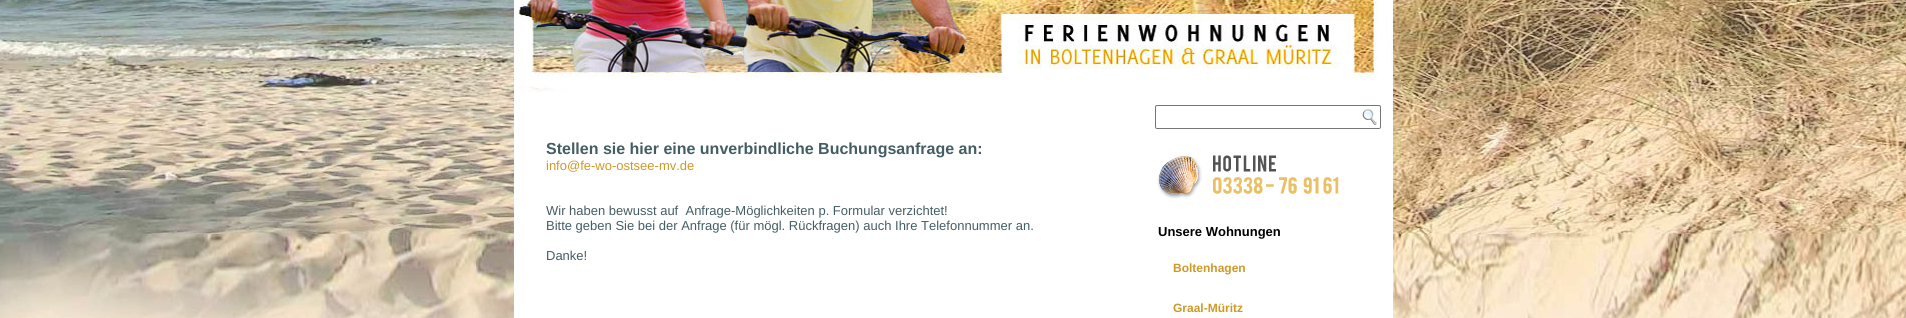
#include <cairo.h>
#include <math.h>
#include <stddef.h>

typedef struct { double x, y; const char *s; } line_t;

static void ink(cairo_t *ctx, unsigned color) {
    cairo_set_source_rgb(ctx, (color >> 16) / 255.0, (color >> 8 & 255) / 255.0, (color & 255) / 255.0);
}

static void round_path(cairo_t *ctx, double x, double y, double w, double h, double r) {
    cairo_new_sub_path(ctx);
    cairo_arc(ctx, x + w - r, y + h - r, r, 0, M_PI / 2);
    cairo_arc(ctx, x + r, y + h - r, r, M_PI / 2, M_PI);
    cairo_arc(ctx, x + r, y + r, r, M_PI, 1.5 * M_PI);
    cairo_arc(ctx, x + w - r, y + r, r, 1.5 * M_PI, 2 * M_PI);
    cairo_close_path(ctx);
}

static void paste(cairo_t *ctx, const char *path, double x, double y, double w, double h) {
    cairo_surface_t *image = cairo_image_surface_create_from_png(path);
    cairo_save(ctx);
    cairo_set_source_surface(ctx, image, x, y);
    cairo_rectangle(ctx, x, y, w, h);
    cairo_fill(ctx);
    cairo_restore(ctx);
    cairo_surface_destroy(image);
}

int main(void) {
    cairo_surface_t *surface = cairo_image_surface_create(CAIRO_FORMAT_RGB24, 1906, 318);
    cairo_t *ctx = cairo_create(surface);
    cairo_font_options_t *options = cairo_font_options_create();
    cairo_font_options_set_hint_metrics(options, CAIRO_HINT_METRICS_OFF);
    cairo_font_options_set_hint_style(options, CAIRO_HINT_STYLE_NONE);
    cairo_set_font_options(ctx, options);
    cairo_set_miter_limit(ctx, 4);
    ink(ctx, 0xFFFFFF);
    cairo_paint(ctx);
    paste(ctx, "media/1.png", 0, 0, 1906, 318);
    paste(ctx, "media/2.png", 514, 0, 879, 93);
    ink(ctx, 0xFFFFFF);
    cairo_rectangle(ctx, 514, 93, 879, 225);
    cairo_fill(ctx);
    cairo_select_font_face(ctx, "Liberation Sans", CAIRO_FONT_SLANT_NORMAL, CAIRO_FONT_WEIGHT_BOLD);
    cairo_set_font_size(ctx, 16);
    ink(ctx, 0x445D64);
    cairo_move_to(ctx, 546, 154);
    cairo_show_text(ctx, "Stellen sie hier eine unverbindliche Buchungsanfrage an:");
    cairo_select_font_face(ctx, "Liberation Sans", CAIRO_FONT_SLANT_NORMAL, CAIRO_FONT_WEIGHT_NORMAL);
    cairo_set_font_size(ctx, 13);
    ink(ctx, 0xCF9926);
    cairo_move_to(ctx, 546, 170);
    cairo_show_text(ctx, "info@fe-wo-ostsee-mv.de");
    ink(ctx, 0x445D64);
    {
        static const line_t items[] = {
            {546, 215, "Wir haben bewusst auf  Anfrage-Möglichkeiten p. Formular verzichtet!"},
            {546, 230, "Bitte geben Sie bei der Anfrage (für mögl. Rückfragen) auch Ihre Telefonnummer an."},
            {546, 260, "Danke!"},
        };
        for (size_t i = 0; i < sizeof items / sizeof *items; i++) {
            cairo_move_to(ctx, items[i].x, items[i].y);
            cairo_show_text(ctx, items[i].s);
        }
    }
    round_path(ctx, 1155.5, 105.5, 225, 23, 1.5);
    ink(ctx, 0x767676);
    cairo_set_line_width(ctx, 1);
    cairo_stroke(ctx);
    paste(ctx, "media/3.png", 1362, 109, 15, 16);
    paste(ctx, "media/4.png", 1157, 155, 182, 44);
    cairo_select_font_face(ctx, "Liberation Sans", CAIRO_FONT_SLANT_NORMAL, CAIRO_FONT_WEIGHT_BOLD);
    ink(ctx, 0x000000);
    cairo_move_to(ctx, 1158, 236);
    cairo_show_text(ctx, "Unsere Wohnungen");
    cairo_set_font_size(ctx, 12);
    ink(ctx, 0xCF9926);
    cairo_move_to(ctx, 1173, 272);
    cairo_show_text(ctx, "Boltenhagen");
    cairo_move_to(ctx, 1173, 312);
    cairo_show_text(ctx, "Graal-Müritz");
    cairo_surface_write_to_png(surface, "image.png");
    cairo_font_options_destroy(options);
    cairo_destroy(ctx);
    cairo_surface_destroy(surface);
    return 0;
}
